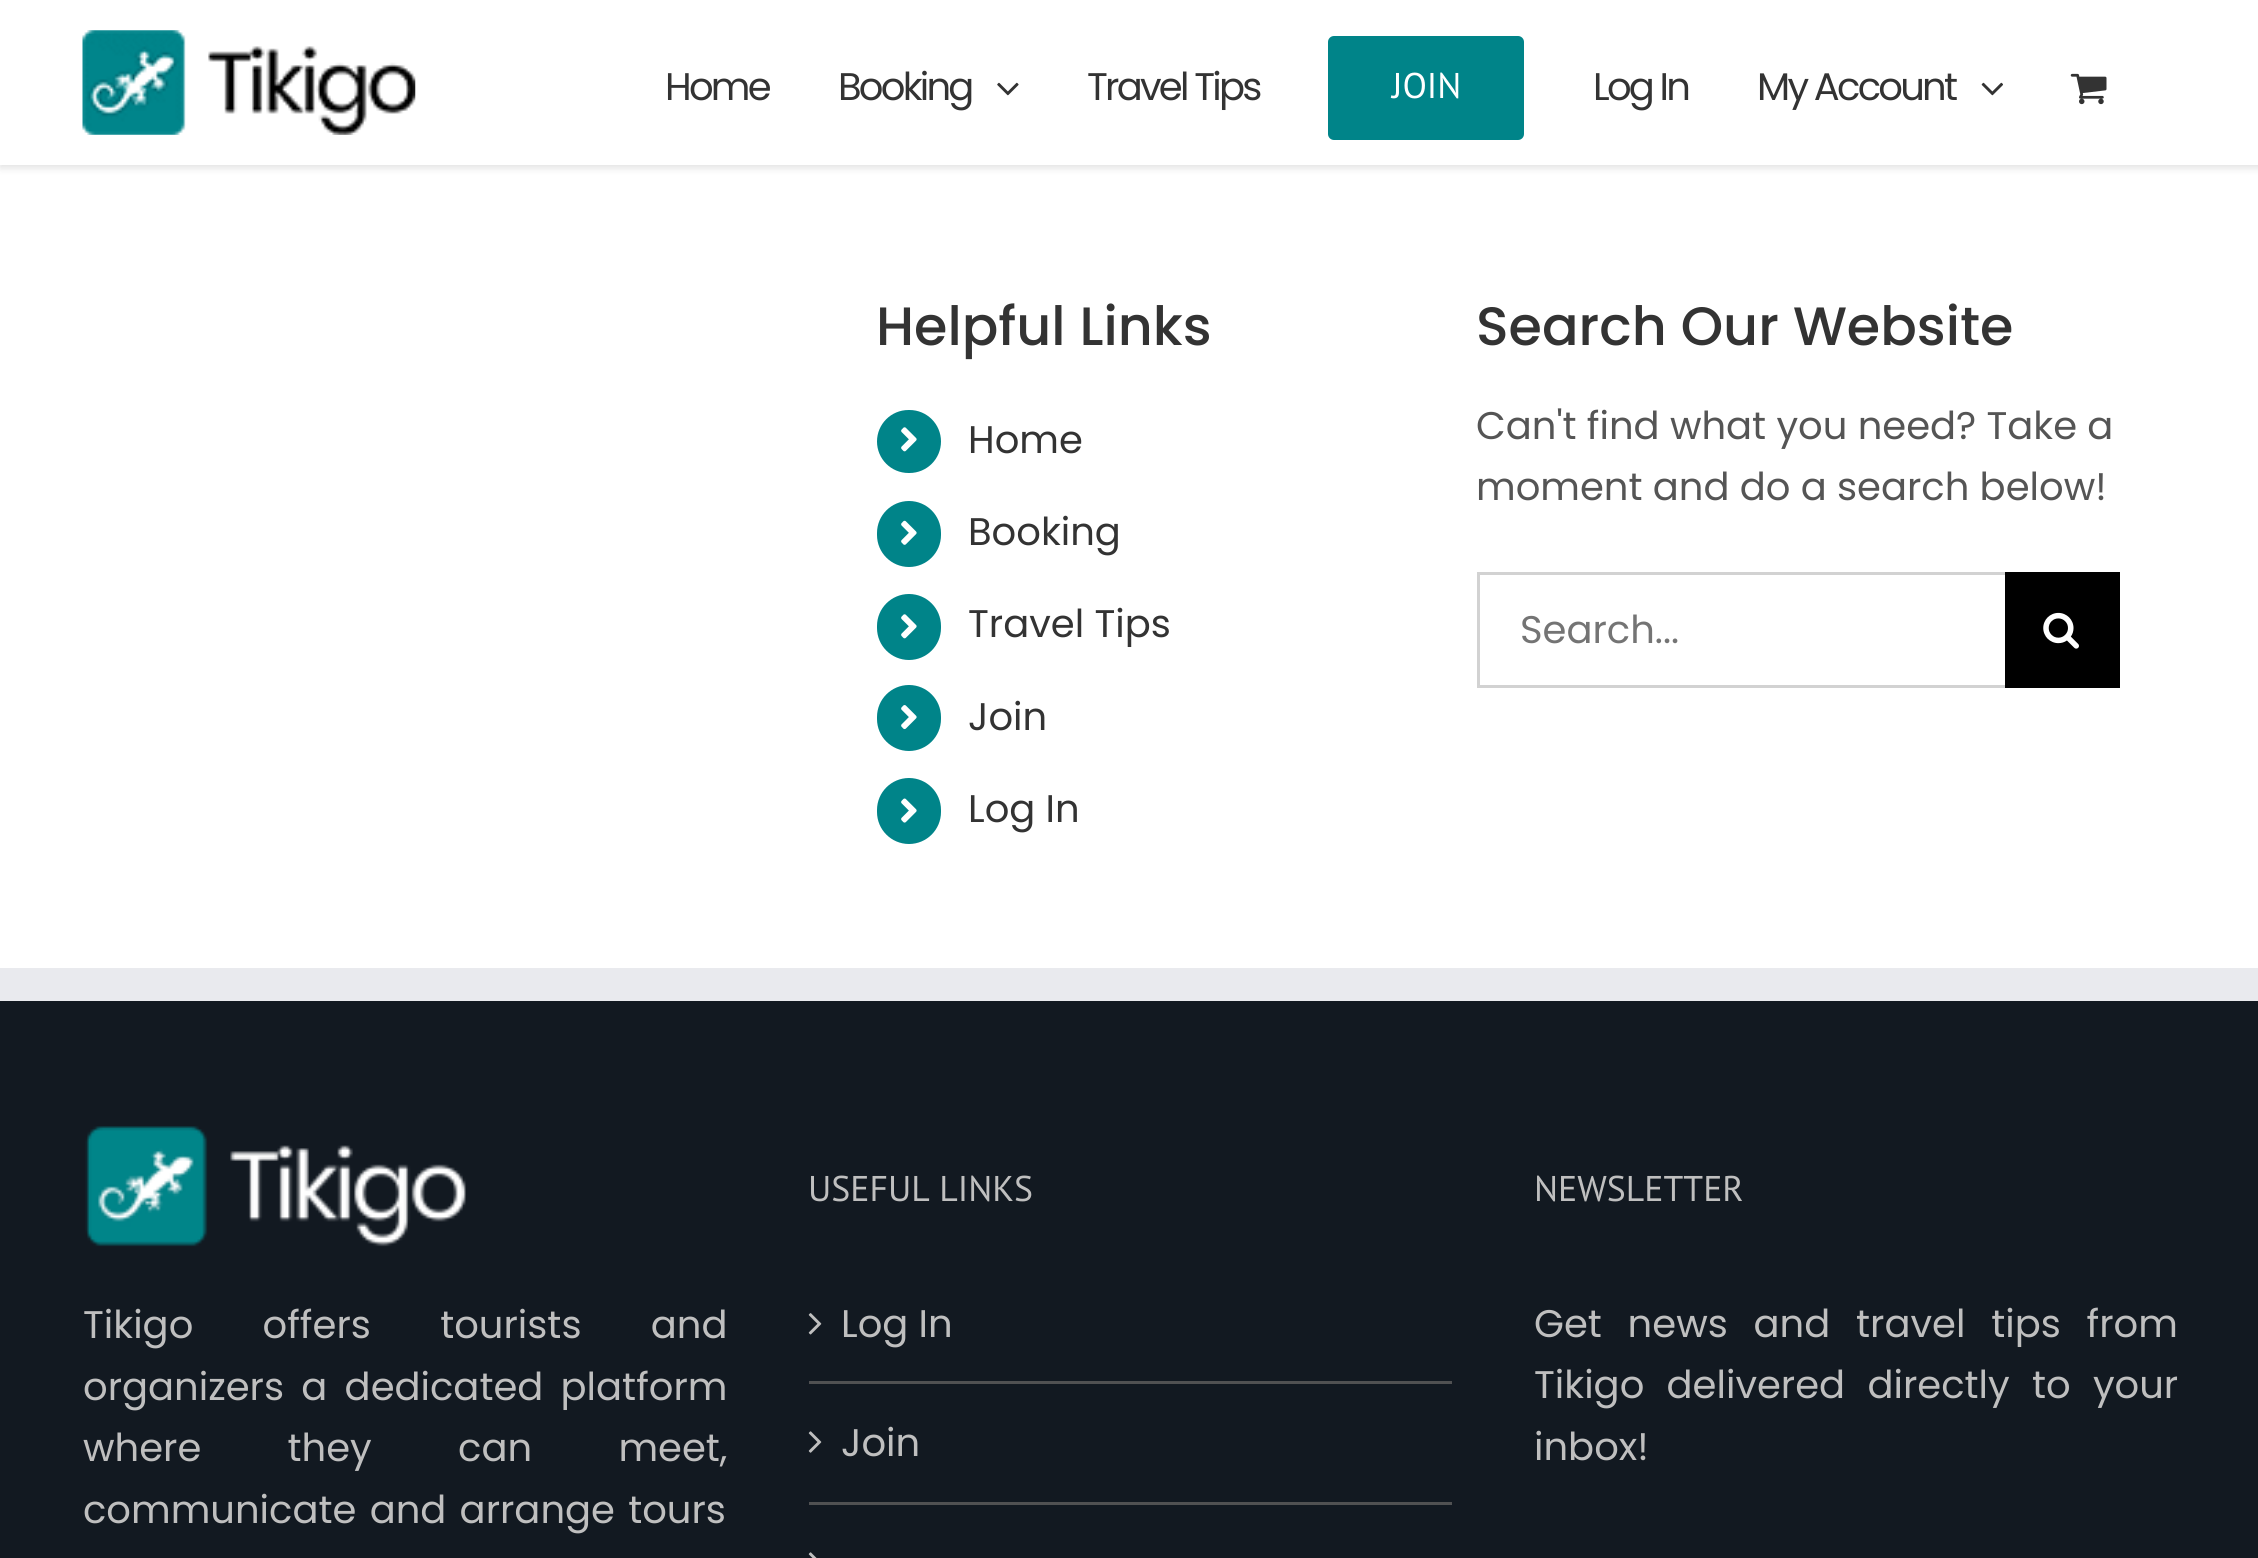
#include <cairo.h>
#include <math.h>
#include <stddef.h>

typedef struct { double x, y, w, h; unsigned color; } box_t;

static void ink(cairo_t *ctx, unsigned color) {
    cairo_set_source_rgb(ctx, (color >> 16) / 255.0, (color >> 8 & 255) / 255.0, (color & 255) / 255.0);
}

static void write_spaced(cairo_t *ctx, double x, double y, const char *s, double letter, double word) {
    cairo_move_to(ctx, x, y);
    while (*s) {
        char ch[5] = {0};
        int n = 0;
        do ch[n++] = *s++; while ((*s & 0xC0) == 0x80);
        cairo_show_text(ctx, ch);
        cairo_rel_move_to(ctx, letter + word * (*ch == ' '), 0);
    }
}

static void round_path(cairo_t *ctx, double x, double y, double w, double h, double r) {
    cairo_new_sub_path(ctx);
    cairo_arc(ctx, x + w - r, y + h - r, r, 0, M_PI / 2);
    cairo_arc(ctx, x + r, y + h - r, r, M_PI / 2, M_PI);
    cairo_arc(ctx, x + r, y + r, r, M_PI, 1.5 * M_PI);
    cairo_arc(ctx, x + w - r, y + r, r, 1.5 * M_PI, 2 * M_PI);
    cairo_close_path(ctx);
}

static void blur_box(cairo_t *ctx, double x, double y, double w, double h, double r, double blur, double alpha) {
    cairo_push_group_with_content(ctx, CAIRO_CONTENT_ALPHA);
    cairo_set_operator(ctx, CAIRO_OPERATOR_SOURCE);
    for (int i = 15; i >= -15 && fmin(w, h) + blur * i / 3 > 0; i -= 2) {
        double e = blur * i / 6;
        cairo_set_source_rgba(ctx, 0, 0, 0, alpha * erfc((i - 1) / 8.5) / 2);
        round_path(ctx, x - e, y - e, w + 2 * e, h + 2 * e, fmax(0, fmin(r + e + blur * .6, fmin(w, h) / 2 + e)));
        cairo_fill(ctx);
    }
    cairo_pattern_t *soft = cairo_pop_group(ctx);
    cairo_mask(ctx, soft);
    cairo_pattern_destroy(soft);
}

static void paste(cairo_t *ctx, const char *path, double x, double y, double w, double h) {
    cairo_surface_t *image = cairo_image_surface_create_from_png(path);
    cairo_save(ctx);
    cairo_set_source_surface(ctx, image, x, y);
    cairo_rectangle(ctx, x, y, w, h);
    cairo_fill(ctx);
    cairo_restore(ctx);
    cairo_surface_destroy(image);
}

int main(void) {
    cairo_surface_t *surface = cairo_image_surface_create(CAIRO_FORMAT_RGB24, 2258, 1558);
    cairo_t *ctx = cairo_create(surface);
    cairo_font_options_t *options = cairo_font_options_create();
    cairo_font_options_set_hint_metrics(options, CAIRO_HINT_METRICS_OFF);
    cairo_font_options_set_hint_style(options, CAIRO_HINT_STYLE_NONE);
    cairo_set_font_options(ctx, options);
    cairo_set_miter_limit(ctx, 4);
    ink(ctx, 0xFFFFFF);
    cairo_paint(ctx);
    ink(ctx, 0x000000);
    blur_box(ctx, 0, 3, 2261, 165, 0, 4, 0.12);
    ink(ctx, 0xFFFFFF);
    cairo_rectangle(ctx, 0, 0, 2258, 165);
    cairo_fill(ctx);
    paste(ctx, "media/1.png", 82, 30, 334, 105);
    cairo_select_font_face(ctx, "Poppins", CAIRO_FONT_SLANT_NORMAL, CAIRO_FONT_WEIGHT_NORMAL);
    cairo_set_font_size(ctx, 38.5);
    ink(ctx, 0x333333);
    write_spaced(ctx, 665, 100, "Home", -2.75, 0);
    write_spaced(ctx, 838, 100, "Booking", -2.75, 0);
    paste(ctx, "media/2.png", 997, 82, 22, 14);
    write_spaced(ctx, 1087, 100, "Travel Tips", -2.75, 0);
    ink(ctx, 0x008489);
    round_path(ctx, 1328, 36, 196, 104, 6);
    cairo_fill(ctx);
    cairo_select_font_face(ctx, "PT Sans", CAIRO_FONT_SLANT_NORMAL, CAIRO_FONT_WEIGHT_NORMAL);
    cairo_set_font_size(ctx, 35.75);
    ink(ctx, 0xFFFFFF);
    cairo_move_to(ctx, 1392, 98);
    cairo_show_text(ctx, "JOIN");
    cairo_select_font_face(ctx, "Poppins", CAIRO_FONT_SLANT_NORMAL, CAIRO_FONT_WEIGHT_NORMAL);
    cairo_set_font_size(ctx, 38.5);
    ink(ctx, 0x333333);
    write_spaced(ctx, 1593, 100, "Log In", -2.75, 0);
    write_spaced(ctx, 1757, 100, "My Account", -2.75, 0);
    paste(ctx, "media/3.png", 1981, 82, 22, 14);
    paste(ctx, "media/4.png", 2070, 73, 37, 32);
    cairo_select_font_face(ctx, "Poppins Medium", CAIRO_FONT_SLANT_NORMAL, CAIRO_FONT_WEIGHT_NORMAL);
    cairo_set_font_size(ctx, 54);
    cairo_move_to(ctx, 876, 345);
    cairo_show_text(ctx, "Helpful Links");
    ink(ctx, 0x008489);
    round_path(ctx, 877, 410, 64, 63, 31.5);
    cairo_fill(ctx);
    paste(ctx, "media/5.png", 901, 427, 16, 25);
    cairo_select_font_face(ctx, "Poppins", CAIRO_FONT_SLANT_NORMAL, CAIRO_FONT_WEIGHT_NORMAL);
    cairo_set_font_size(ctx, 38.5);
    ink(ctx, 0x333333);
    cairo_move_to(ctx, 968, 453);
    cairo_show_text(ctx, "Home");
    ink(ctx, 0x008489);
    round_path(ctx, 877, 501, 64, 66, 32);
    cairo_fill(ctx);
    paste(ctx, "media/6.png", 901, 520, 16, 25);
    ink(ctx, 0x333333);
    cairo_move_to(ctx, 968, 545);
    cairo_show_text(ctx, "Booking");
    ink(ctx, 0x008489);
    round_path(ctx, 877, 594, 64, 66, 32);
    cairo_fill(ctx);
    paste(ctx, "media/5.png", 901, 614, 16, 25);
    ink(ctx, 0x333333);
    cairo_move_to(ctx, 968, 637);
    cairo_show_text(ctx, "Travel Tips");
    ink(ctx, 0x008489);
    round_path(ctx, 877, 685, 64, 66, 32);
    cairo_fill(ctx);
    paste(ctx, "media/7.png", 901, 705, 16, 25);
    ink(ctx, 0x333333);
    cairo_move_to(ctx, 968, 730);
    cairo_show_text(ctx, "Join");
    ink(ctx, 0x008489);
    round_path(ctx, 877, 778, 64, 66, 32);
    cairo_fill(ctx);
    paste(ctx, "media/8.png", 901, 798, 16, 25);
    ink(ctx, 0x333333);
    cairo_move_to(ctx, 968, 822);
    cairo_show_text(ctx, "Log In");
    cairo_select_font_face(ctx, "Poppins Medium", CAIRO_FONT_SLANT_NORMAL, CAIRO_FONT_WEIGHT_NORMAL);
    cairo_set_font_size(ctx, 54);
    cairo_move_to(ctx, 1476, 345);
    cairo_show_text(ctx, "Search Our Website");
    cairo_select_font_face(ctx, "Poppins", CAIRO_FONT_SLANT_NORMAL, CAIRO_FONT_WEIGHT_NORMAL);
    cairo_set_font_size(ctx, 38.5);
    ink(ctx, 0x555555);
    cairo_move_to(ctx, 1476, 439);
    cairo_show_text(ctx, "Can't find what you need? Take a");
    cairo_move_to(ctx, 1476, 500);
    cairo_show_text(ctx, "moment and do a search below!");
    {
        static const box_t items[] = {
            {1477, 572, 528, 3, 0xD2D2D2},
            {1477, 685, 528, 3, 0xD2D2D2},
            {1477, 572, 3, 116, 0xD2D2D2},
        };
        for (size_t i = 0; i < sizeof items / sizeof *items; i++) {
            ink(ctx, items[i].color);
            cairo_rectangle(ctx, items[i].x, items[i].y, items[i].w, items[i].h);
            cairo_fill(ctx);
        }
    }
    ink(ctx, 0x747474);
    cairo_move_to(ctx, 1520, 643);
    cairo_show_text(ctx, "Search...");
    ink(ctx, 0x000000);
    cairo_rectangle(ctx, 2005, 572, 115, 116);
    cairo_fill(ctx);
    paste(ctx, "media/9.png", 2043, 612, 36, 37);
    ink(ctx, 0x121921);
    cairo_rectangle(ctx, 0, 1001, 2258, 557);
    cairo_fill(ctx);
    ink(ctx, 0xE9EAEE);
    cairo_rectangle(ctx, 0, 968, 2258, 33);
    cairo_fill(ctx);
    paste(ctx, "media/10.png", 85, 1126, 381, 121);
    ink(ctx, 0xBFBFBF);
    write_spaced(ctx, 83, 1338, "Tikigo offers tourists and", 0, 59);
    write_spaced(ctx, 83, 1400, "organizers a dedicated platform", 0, 7);
    write_spaced(ctx, 83, 1461, "where they can meet,", 0, 76);
    write_spaced(ctx, 83, 1523, "communicate and arrange tours", 0, 3);
    cairo_select_font_face(ctx, "PT Sans", CAIRO_FONT_SLANT_NORMAL, CAIRO_FONT_WEIGHT_NORMAL);
    cairo_set_font_size(ctx, 35.75);
    cairo_move_to(ctx, 808, 1201);
    cairo_show_text(ctx, "USEFUL LINKS");
    ink(ctx, 0x505152);
    cairo_rectangle(ctx, 809, 1381, 643, 3);
    cairo_fill(ctx);
    paste(ctx, "media/11.png", 808, 1313, 14, 22);
    cairo_select_font_face(ctx, "Poppins", CAIRO_FONT_SLANT_NORMAL, CAIRO_FONT_WEIGHT_NORMAL);
    cairo_set_font_size(ctx, 38.5);
    ink(ctx, 0xBFBFBF);
    cairo_move_to(ctx, 841, 1337);
    cairo_show_text(ctx, "Log In");
    ink(ctx, 0x505152);
    cairo_rectangle(ctx, 809, 1502, 643, 3);
    cairo_fill(ctx);
    paste(ctx, "media/12.png", 808, 1431, 14, 22);
    ink(ctx, 0xBFBFBF);
    cairo_move_to(ctx, 841, 1456);
    cairo_show_text(ctx, "Join");
    paste(ctx, "media/13.png", 808, 1552, 9, 6);
    cairo_select_font_face(ctx, "PT Sans", CAIRO_FONT_SLANT_NORMAL, CAIRO_FONT_WEIGHT_NORMAL);
    cairo_set_font_size(ctx, 35.75);
    cairo_move_to(ctx, 1534, 1201);
    cairo_show_text(ctx, "NEWSLETTER");
    cairo_select_font_face(ctx, "Poppins", CAIRO_FONT_SLANT_NORMAL, CAIRO_FONT_WEIGHT_NORMAL);
    cairo_set_font_size(ctx, 38.5);
    write_spaced(ctx, 1534, 1337, "Get news and travel tips from", 0, 15.5);
    write_spaced(ctx, 1534, 1398, "Tikigo delivered directly to your", 0, 12);
    cairo_move_to(ctx, 1534, 1460);
    cairo_show_text(ctx, "inbox!");
    cairo_surface_write_to_png(surface, "image.png");
    cairo_font_options_destroy(options);
    cairo_destroy(ctx);
    cairo_surface_destroy(surface);
    return 0;
}
